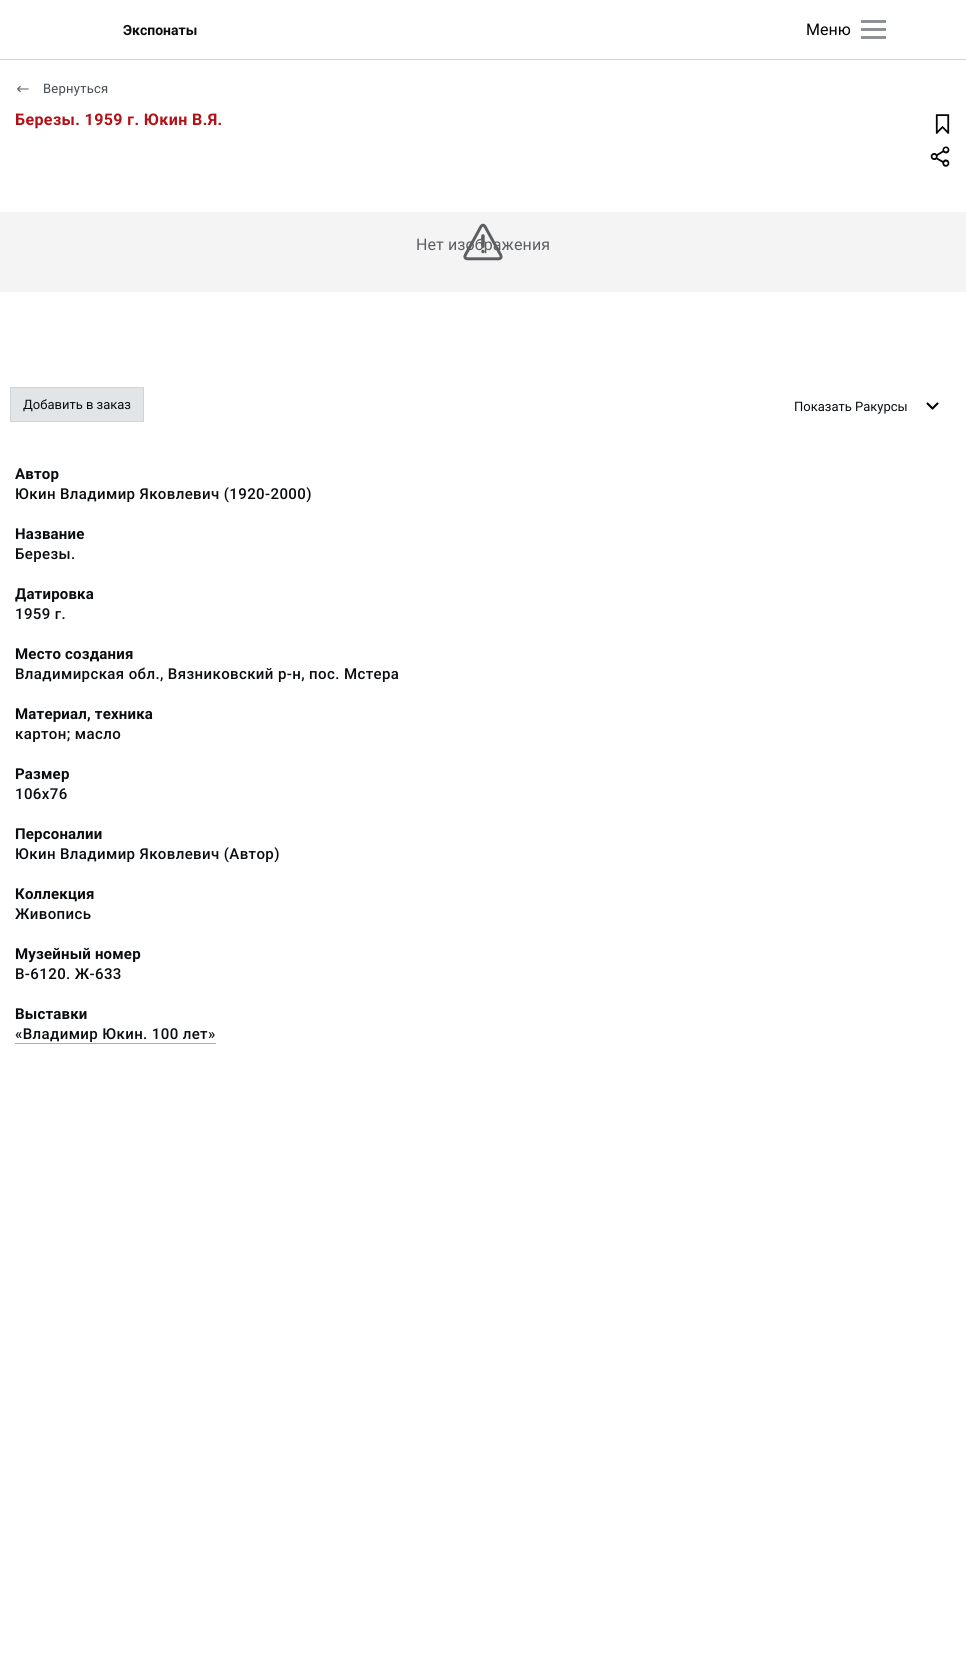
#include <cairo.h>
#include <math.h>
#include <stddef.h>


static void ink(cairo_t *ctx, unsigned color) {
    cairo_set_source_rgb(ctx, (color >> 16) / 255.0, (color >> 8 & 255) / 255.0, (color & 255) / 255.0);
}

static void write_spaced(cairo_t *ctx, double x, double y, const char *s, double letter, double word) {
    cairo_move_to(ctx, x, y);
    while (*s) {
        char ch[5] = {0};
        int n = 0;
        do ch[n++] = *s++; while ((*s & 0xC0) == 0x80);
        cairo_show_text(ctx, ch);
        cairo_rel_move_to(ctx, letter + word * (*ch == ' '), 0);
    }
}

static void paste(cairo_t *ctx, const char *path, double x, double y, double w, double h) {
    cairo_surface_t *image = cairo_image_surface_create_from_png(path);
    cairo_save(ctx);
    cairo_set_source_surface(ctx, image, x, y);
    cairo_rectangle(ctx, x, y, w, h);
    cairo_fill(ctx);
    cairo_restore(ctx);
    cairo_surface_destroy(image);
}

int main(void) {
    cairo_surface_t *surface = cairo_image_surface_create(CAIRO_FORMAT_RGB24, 966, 1678);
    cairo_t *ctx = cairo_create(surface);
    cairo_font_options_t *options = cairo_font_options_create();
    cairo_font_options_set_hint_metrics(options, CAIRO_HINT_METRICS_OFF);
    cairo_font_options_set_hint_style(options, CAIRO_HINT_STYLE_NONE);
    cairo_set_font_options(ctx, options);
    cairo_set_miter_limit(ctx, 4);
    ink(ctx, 0xFFFFFF);
    cairo_paint(ctx);
    ink(ctx, 0xD3D3D3);
    cairo_rectangle(ctx, 0, 59, 966, 1);
    cairo_fill(ctx);
    cairo_select_font_face(ctx, "Roboto", CAIRO_FONT_SLANT_NORMAL, CAIRO_FONT_WEIGHT_BOLD);
    cairo_set_font_size(ctx, 14);
    ink(ctx, 0x0A0D10);
    cairo_move_to(ctx, 123, 35);
    cairo_show_text(ctx, "Экспонаты");
    ink(ctx, 0x8E9195);
    cairo_rectangle(ctx, 861, 20, 25, 3);
    cairo_fill(ctx);
    cairo_select_font_face(ctx, "Roboto", CAIRO_FONT_SLANT_NORMAL, CAIRO_FONT_WEIGHT_NORMAL);
    cairo_set_font_size(ctx, 16);
    ink(ctx, 0x000000);
    cairo_move_to(ctx, 806, 35);
    cairo_show_text(ctx, "Меню");
    ink(ctx, 0x8E9195);
    cairo_rectangle(ctx, 861, 28, 25, 3);
    cairo_fill(ctx);
    cairo_rectangle(ctx, 861, 36, 25, 3);
    cairo_fill(ctx);
    paste(ctx, "media/1.png", 17, 85, 12, 8);
    cairo_set_font_size(ctx, 13);
    ink(ctx, 0x444A50);
    write_spaced(ctx, 43, 93, "Вернуться", 0.25, 0);
    cairo_select_font_face(ctx, "Roboto", CAIRO_FONT_SLANT_NORMAL, CAIRO_FONT_WEIGHT_BOLD);
    cairo_set_font_size(ctx, 16);
    ink(ctx, 0xB11016);
    write_spaced(ctx, 15, 125, "Березы. 1959 г. Юкин В.Я.", 0.4, 0);
    ink(ctx, 0xF4F4F5);
    cairo_rectangle(ctx, 0, 212, 966, 80);
    cairo_fill(ctx);
    cairo_select_font_face(ctx, "Roboto", CAIRO_FONT_SLANT_NORMAL, CAIRO_FONT_WEIGHT_NORMAL);
    ink(ctx, 0x5C5F62);
    write_spaced(ctx, 416, 250, "Нет изображения", 0.1, 0);
    paste(ctx, "media/2.png", 463, 223, 40, 38);
    ink(ctx, 0xE2E5E8);
    cairo_rectangle(ctx, 10.5, 387.5, 133, 34);
    cairo_fill_preserve(ctx);
    ink(ctx, 0xD3D3D3);
    cairo_set_line_width(ctx, 1);
    cairo_stroke(ctx);
    cairo_set_font_size(ctx, 13);
    ink(ctx, 0x0A0D10);
    cairo_move_to(ctx, 23, 409);
    cairo_show_text(ctx, "Добавить в заказ");
    cairo_move_to(ctx, 794, 411);
    cairo_show_text(ctx, "Показать Ракурсы");
    paste(ctx, "media/3.png", 926, 402, 13, 8);
    paste(ctx, "media/4.png", 935, 114, 15, 20);
    paste(ctx, "media/5.png", 930, 146, 20, 21);
    cairo_select_font_face(ctx, "Roboto", CAIRO_FONT_SLANT_NORMAL, CAIRO_FONT_WEIGHT_BOLD);
    cairo_set_font_size(ctx, 15);
    write_spaced(ctx, 15, 479, "Автор", 0.2, 0);
    cairo_select_font_face(ctx, "Roboto Medium", CAIRO_FONT_SLANT_NORMAL, CAIRO_FONT_WEIGHT_NORMAL);
    write_spaced(ctx, 15, 499, "Юкин Владимир Яковлевич (1920-2000)", 0.4, 0);
    cairo_select_font_face(ctx, "Roboto", CAIRO_FONT_SLANT_NORMAL, CAIRO_FONT_WEIGHT_BOLD);
    write_spaced(ctx, 15, 539, "Название", 0.2, 0);
    cairo_select_font_face(ctx, "Roboto Medium", CAIRO_FONT_SLANT_NORMAL, CAIRO_FONT_WEIGHT_NORMAL);
    write_spaced(ctx, 15, 559, "Березы.", 0.4, 0);
    cairo_select_font_face(ctx, "Roboto", CAIRO_FONT_SLANT_NORMAL, CAIRO_FONT_WEIGHT_BOLD);
    write_spaced(ctx, 15, 599, "Датировка", 0.2, 0);
    cairo_select_font_face(ctx, "Roboto Medium", CAIRO_FONT_SLANT_NORMAL, CAIRO_FONT_WEIGHT_NORMAL);
    write_spaced(ctx, 15, 619, "1959 г.", 0.4, 0);
    cairo_select_font_face(ctx, "Roboto", CAIRO_FONT_SLANT_NORMAL, CAIRO_FONT_WEIGHT_BOLD);
    write_spaced(ctx, 15, 659, "Место создания", 0.2, 0);
    cairo_select_font_face(ctx, "Roboto Medium", CAIRO_FONT_SLANT_NORMAL, CAIRO_FONT_WEIGHT_NORMAL);
    write_spaced(ctx, 15, 679, "Владимирская обл., Вязниковский р-н, пос. Мстера", 0.4, 0);
    cairo_select_font_face(ctx, "Roboto", CAIRO_FONT_SLANT_NORMAL, CAIRO_FONT_WEIGHT_BOLD);
    write_spaced(ctx, 15, 719, "Материал, техника", 0.2, 0);
    cairo_select_font_face(ctx, "Roboto Medium", CAIRO_FONT_SLANT_NORMAL, CAIRO_FONT_WEIGHT_NORMAL);
    write_spaced(ctx, 15, 739, "картон; масло", 0.4, 0);
    cairo_select_font_face(ctx, "Roboto", CAIRO_FONT_SLANT_NORMAL, CAIRO_FONT_WEIGHT_BOLD);
    write_spaced(ctx, 15, 779, "Размер", 0.2, 0);
    cairo_select_font_face(ctx, "Roboto Medium", CAIRO_FONT_SLANT_NORMAL, CAIRO_FONT_WEIGHT_NORMAL);
    write_spaced(ctx, 15, 799, "106x76", 0.4, 0);
    cairo_select_font_face(ctx, "Roboto", CAIRO_FONT_SLANT_NORMAL, CAIRO_FONT_WEIGHT_BOLD);
    write_spaced(ctx, 15, 839, "Персоналии", 0.2, 0);
    cairo_select_font_face(ctx, "Roboto Medium", CAIRO_FONT_SLANT_NORMAL, CAIRO_FONT_WEIGHT_NORMAL);
    write_spaced(ctx, 15, 859, "Юкин Владимир Яковлевич (Автор)", 0.4, 0);
    cairo_select_font_face(ctx, "Roboto", CAIRO_FONT_SLANT_NORMAL, CAIRO_FONT_WEIGHT_BOLD);
    write_spaced(ctx, 15, 899, "Коллекция", 0.2, 0);
    cairo_select_font_face(ctx, "Roboto Medium", CAIRO_FONT_SLANT_NORMAL, CAIRO_FONT_WEIGHT_NORMAL);
    write_spaced(ctx, 15, 919, "Живопись", 0.4, 0);
    cairo_select_font_face(ctx, "Roboto", CAIRO_FONT_SLANT_NORMAL, CAIRO_FONT_WEIGHT_BOLD);
    write_spaced(ctx, 15, 959, "Музейный номер", 0.2, 0);
    cairo_select_font_face(ctx, "Roboto Medium", CAIRO_FONT_SLANT_NORMAL, CAIRO_FONT_WEIGHT_NORMAL);
    write_spaced(ctx, 15, 979, "В-6120. Ж-633", 0.4, 0);
    cairo_select_font_face(ctx, "Roboto", CAIRO_FONT_SLANT_NORMAL, CAIRO_FONT_WEIGHT_BOLD);
    write_spaced(ctx, 15, 1019, "Выставки", 0.2, 0);
    cairo_select_font_face(ctx, "Roboto Medium", CAIRO_FONT_SLANT_NORMAL, CAIRO_FONT_WEIGHT_NORMAL);
    write_spaced(ctx, 15, 1039, "«Владимир Юкин. 100 лет»", 0.4, 0);
    ink(ctx, 0xACACAC);
    cairo_rectangle(ctx, 15, 1043, 201, 1);
    cairo_fill(ctx);
    cairo_surface_write_to_png(surface, "image.png");
    cairo_font_options_destroy(options);
    cairo_destroy(ctx);
    cairo_surface_destroy(surface);
    return 0;
}
